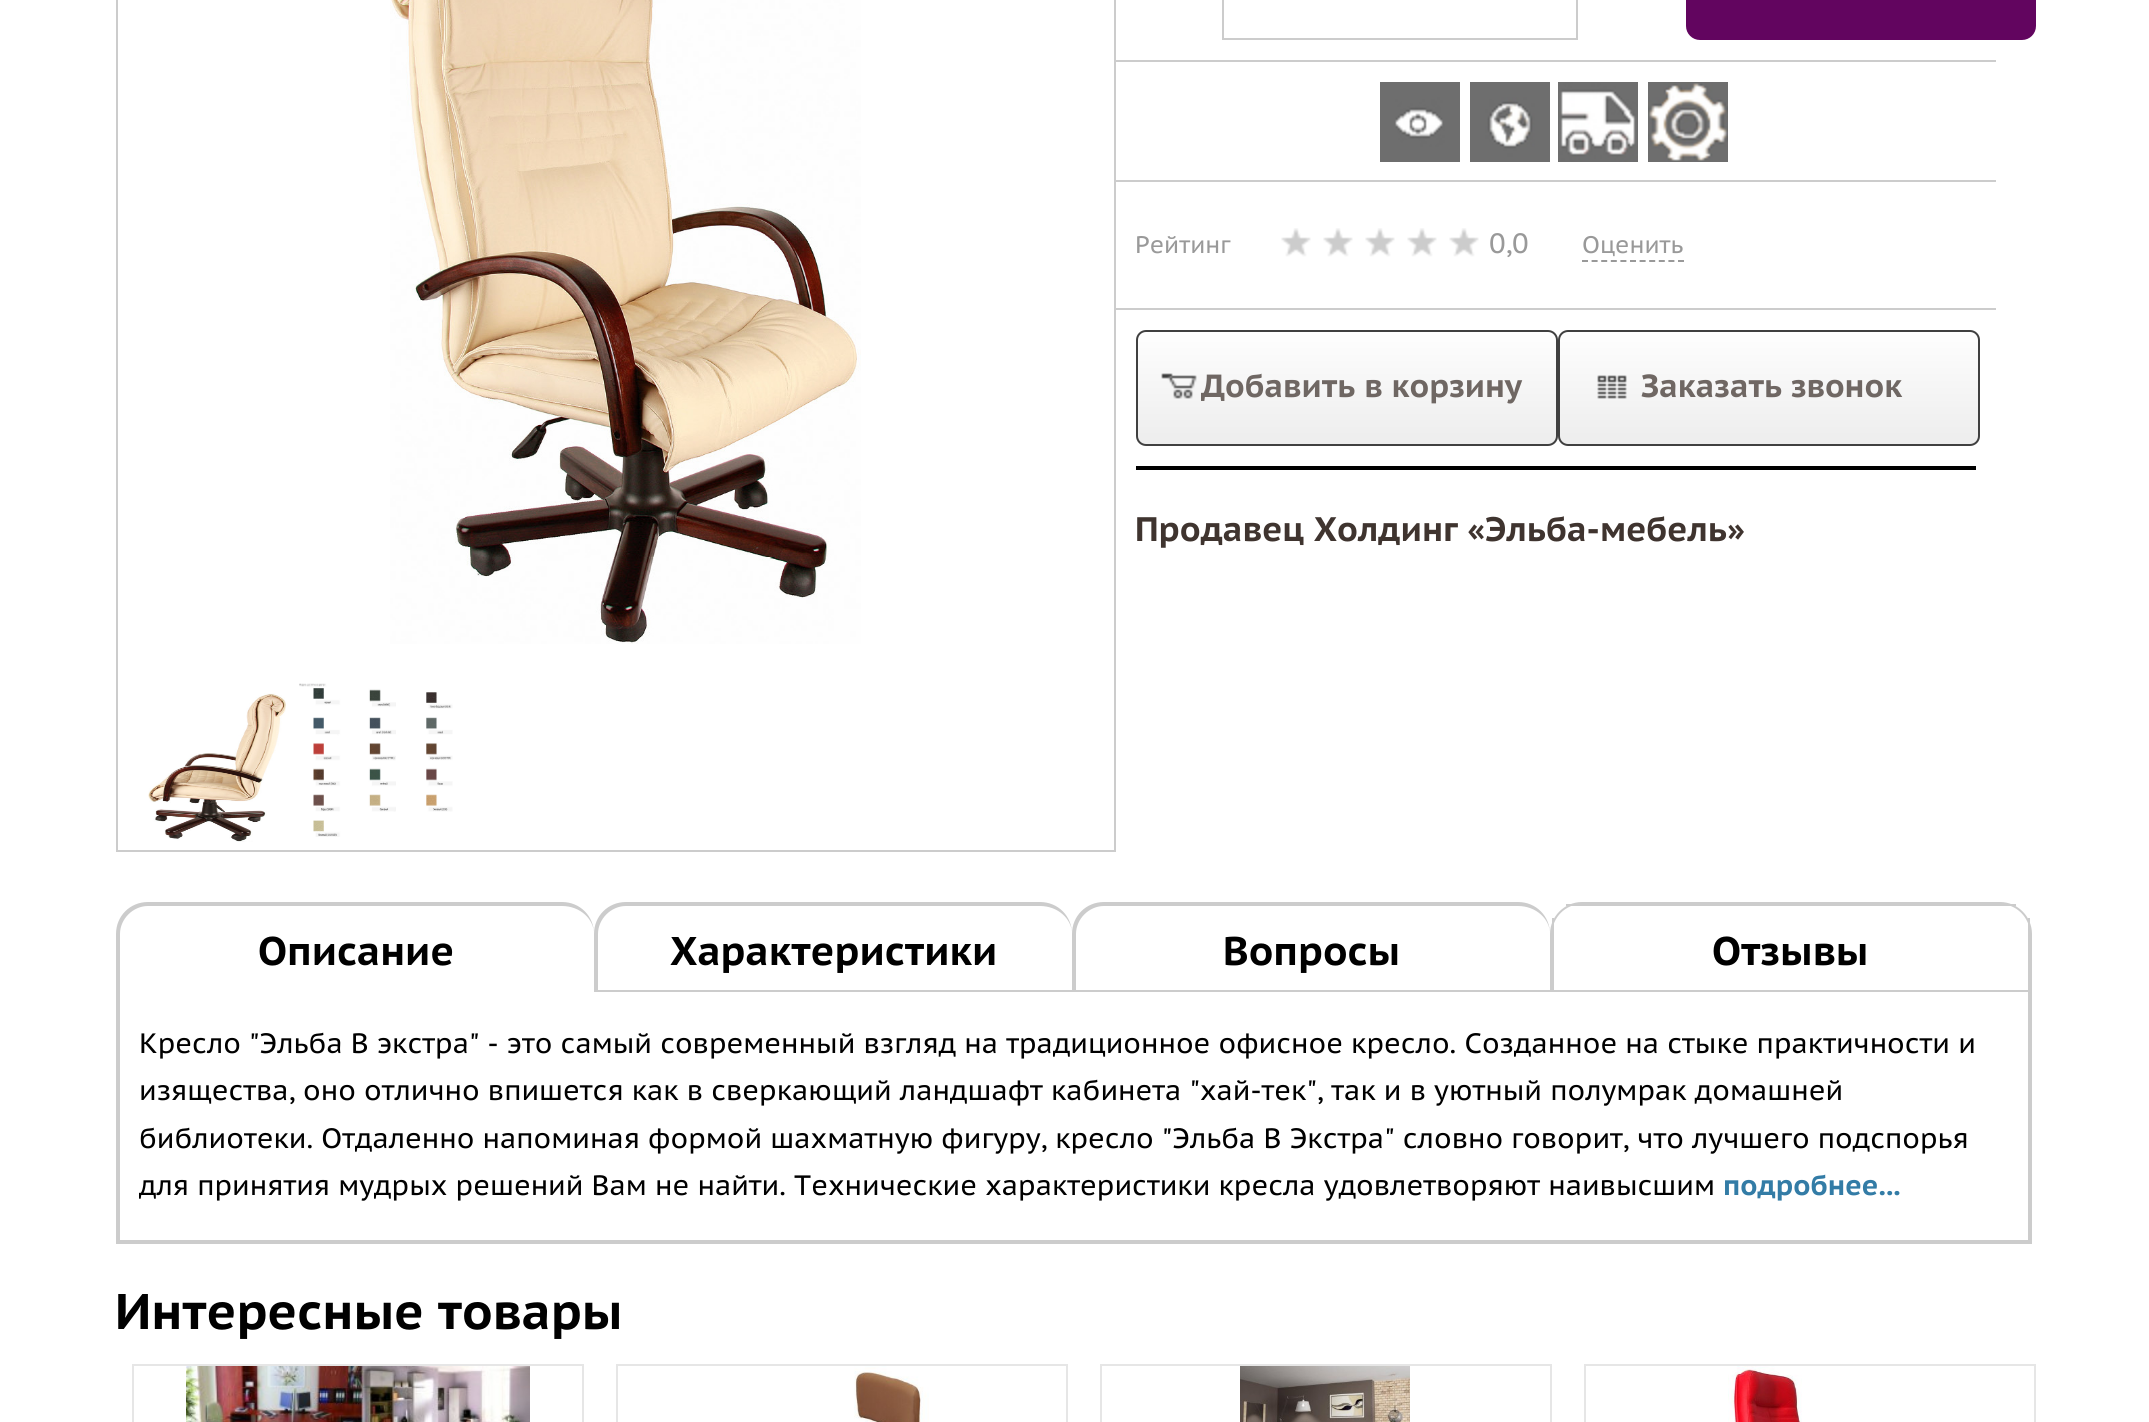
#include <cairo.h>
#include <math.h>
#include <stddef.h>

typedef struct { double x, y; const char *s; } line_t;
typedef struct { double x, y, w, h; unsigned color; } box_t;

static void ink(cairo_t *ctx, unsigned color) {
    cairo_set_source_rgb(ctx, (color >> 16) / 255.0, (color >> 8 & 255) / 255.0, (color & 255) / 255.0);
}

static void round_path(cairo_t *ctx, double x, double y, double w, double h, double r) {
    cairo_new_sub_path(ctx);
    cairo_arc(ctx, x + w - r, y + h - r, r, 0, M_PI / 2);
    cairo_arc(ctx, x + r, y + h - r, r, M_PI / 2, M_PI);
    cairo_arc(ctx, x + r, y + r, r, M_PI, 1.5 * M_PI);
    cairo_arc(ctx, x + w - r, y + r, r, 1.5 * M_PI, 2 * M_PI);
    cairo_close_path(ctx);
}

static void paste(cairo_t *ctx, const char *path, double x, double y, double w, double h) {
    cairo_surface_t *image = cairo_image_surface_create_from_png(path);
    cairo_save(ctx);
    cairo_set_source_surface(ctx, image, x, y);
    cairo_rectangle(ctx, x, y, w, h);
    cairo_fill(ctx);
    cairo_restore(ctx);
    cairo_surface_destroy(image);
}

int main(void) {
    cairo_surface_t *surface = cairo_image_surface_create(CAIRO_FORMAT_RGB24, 2149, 1422);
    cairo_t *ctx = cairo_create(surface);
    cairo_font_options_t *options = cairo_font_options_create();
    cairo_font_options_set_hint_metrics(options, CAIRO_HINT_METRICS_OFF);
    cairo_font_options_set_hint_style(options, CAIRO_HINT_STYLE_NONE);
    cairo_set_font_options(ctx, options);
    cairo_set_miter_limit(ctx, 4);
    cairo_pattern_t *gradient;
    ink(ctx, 0xFFFFFF);
    cairo_paint(ctx);
    cairo_rectangle(ctx, 117, -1, 998, 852);
    ink(ctx, 0xCCCCCC);
    cairo_stroke(ctx);
    paste(ctx, "media/1.png", 390, 0, 471, 644);
    paste(ctx, "media/2.png", 148, 693, 138, 149);
    paste(ctx, "media/3.png", 299, 683, 154, 154);
    cairo_rectangle(ctx, 1223, -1, 354, 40);
    cairo_stroke(ctx);
    ink(ctx, 0x62055F);
    round_path(ctx, 1686, -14, 350, 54, 14);
    cairo_fill(ctx);
    ink(ctx, 0xCCCCCC);
    cairo_rectangle(ctx, 1116, 60, 880, 2);
    cairo_fill(ctx);
    paste(ctx, "media/4.png", 1380, 82, 80, 80);
    paste(ctx, "media/5.png", 1470, 82, 80, 80);
    paste(ctx, "media/6.png", 1558, 82, 80, 80);
    paste(ctx, "media/7.png", 1648, 82, 80, 80);
    cairo_rectangle(ctx, 1116, 180, 880, 2);
    cairo_fill(ctx);
    cairo_rectangle(ctx, 1116, 308, 880, 2);
    cairo_fill(ctx);
    cairo_select_font_face(ctx, "PT Sans Caption", CAIRO_FONT_SLANT_NORMAL, CAIRO_FONT_WEIGHT_NORMAL);
    cairo_set_font_size(ctx, 24);
    ink(ctx, 0x999999);
    cairo_move_to(ctx, 1135, 253);
    cairo_show_text(ctx, "Рейтинг");
    paste(ctx, "media/8.png", 1281, 228, 30, 29);
    paste(ctx, "media/8.png", 1323, 228, 30, 29);
    paste(ctx, "media/8.png", 1365, 228, 30, 29);
    paste(ctx, "media/8.png", 1407, 228, 30, 29);
    paste(ctx, "media/8.png", 1449, 228, 30, 29);
    cairo_set_font_size(ctx, 28);
    cairo_move_to(ctx, 1489, 253);
    cairo_show_text(ctx, "0,0");
    cairo_new_path(ctx);
    cairo_move_to(ctx, 1582, 261);
    cairo_line_to(ctx, 1684, 261);
    cairo_set_dash(ctx, (double[]){6, 3.6}, 2, 0);
    cairo_stroke(ctx);
    cairo_set_font_size(ctx, 24);
    cairo_move_to(ctx, 1582, 253);
    cairo_show_text(ctx, "Оценить");
    cairo_save(ctx);
    round_path(ctx, 1136, 330, 422, 116, 10);
    cairo_clip(ctx);
    gradient = cairo_pattern_create_linear(1347, 332, 1347, 444);
    cairo_pattern_add_color_stop_rgba(gradient, 0, 0.996, 0.996, 0.996, 1);
    cairo_pattern_add_color_stop_rgba(gradient, 1, 0.929, 0.929, 0.929, 1);
    cairo_set_source(ctx, gradient);
    cairo_pattern_destroy(gradient);
    cairo_rectangle(ctx, 1136, 332, 422, 112);
    cairo_fill(ctx);
    cairo_restore(ctx);
    round_path(ctx, 1137, 331, 420, 114, 9);
    ink(ctx, 0x404040);
    cairo_set_dash(ctx, NULL, 0, 0);
    cairo_stroke(ctx);
    paste(ctx, "media/9.png", 1161, 373, 36, 26);
    cairo_select_font_face(ctx, "PT Sans Caption", CAIRO_FONT_SLANT_NORMAL, CAIRO_FONT_WEIGHT_BOLD);
    cairo_set_font_size(ctx, 32);
    ink(ctx, 0x6F6763);
    cairo_move_to(ctx, 1201, 397);
    cairo_show_text(ctx, "Добавить в корзину");
    cairo_save(ctx);
    round_path(ctx, 1558, 330, 422, 116, 10);
    cairo_clip(ctx);
    gradient = cairo_pattern_create_linear(1769, 332, 1769, 444);
    cairo_pattern_add_color_stop_rgba(gradient, 0, 0.996, 0.996, 0.996, 1);
    cairo_pattern_add_color_stop_rgba(gradient, 1, 0.929, 0.929, 0.929, 1);
    cairo_set_source(ctx, gradient);
    cairo_pattern_destroy(gradient);
    cairo_rectangle(ctx, 1558, 332, 422, 112);
    cairo_fill(ctx);
    cairo_restore(ctx);
    round_path(ctx, 1559, 331, 420, 114, 9);
    ink(ctx, 0x404040);
    cairo_stroke(ctx);
    paste(ctx, "media/10.png", 1597, 375, 30, 24);
    ink(ctx, 0x6F6763);
    cairo_move_to(ctx, 1641, 397);
    cairo_show_text(ctx, "Заказать звонок");
    ink(ctx, 0x000000);
    cairo_rectangle(ctx, 1136, 466, 840, 4);
    cairo_fill(ctx);
    cairo_set_font_size(ctx, 34);
    ink(ctx, 0x3F342F);
    cairo_move_to(ctx, 1135, 541);
    cairo_show_text(ctx, "Продавец Холдинг «Эльба-мебель»");
    ink(ctx, 0xCCCCCC);
    cairo_set_fill_rule(ctx, CAIRO_FILL_RULE_EVEN_ODD);
    cairo_new_path(ctx);
    cairo_move_to(ctx, 148, 902);
    cairo_line_to(ctx, 562, 902);
    cairo_curve_to(ctx, 580, 902, 594, 916, 594, 934);
    cairo_line_to(ctx, 594, 990);
    cairo_line_to(ctx, 116, 990);
    cairo_line_to(ctx, 116, 934);
    cairo_curve_to(ctx, 116, 916, 130, 902, 148, 902);
    cairo_close_path(ctx);
    cairo_move_to(ctx, 148, 906);
    cairo_line_to(ctx, 562, 906);
    cairo_curve_to(ctx, 580, 906, 594, 919, 594, 934);
    cairo_line_to(ctx, 594, 990);
    cairo_line_to(ctx, 120, 990);
    cairo_line_to(ctx, 120, 934);
    cairo_curve_to(ctx, 120, 919, 133, 906, 148, 906);
    cairo_close_path(ctx);
    cairo_fill(ctx);
    cairo_set_font_size(ctx, 40);
    ink(ctx, 0x000000);
    cairo_move_to(ctx, 258, 965);
    cairo_show_text(ctx, "Описание");
    ink(ctx, 0xCCCCCC);
    cairo_new_path(ctx);
    cairo_move_to(ctx, 626, 902);
    cairo_line_to(ctx, 1040, 902);
    cairo_curve_to(ctx, 1058, 902, 1072, 916, 1072, 934);
    cairo_line_to(ctx, 1072, 992);
    cairo_line_to(ctx, 594, 992);
    cairo_line_to(ctx, 594, 934);
    cairo_curve_to(ctx, 594, 916, 608, 902, 626, 902);
    cairo_close_path(ctx);
    cairo_move_to(ctx, 626, 906);
    cairo_line_to(ctx, 1040, 906);
    cairo_curve_to(ctx, 1058, 906, 1072, 919, 1072, 934);
    cairo_line_to(ctx, 1072, 990);
    cairo_line_to(ctx, 598, 990);
    cairo_line_to(ctx, 598, 934);
    cairo_curve_to(ctx, 598, 919, 611, 906, 626, 906);
    cairo_close_path(ctx);
    cairo_fill(ctx);
    ink(ctx, 0x000000);
    cairo_move_to(ctx, 670, 965);
    cairo_show_text(ctx, "Характеристики");
    ink(ctx, 0xCCCCCC);
    cairo_new_path(ctx);
    cairo_move_to(ctx, 1104, 902);
    cairo_line_to(ctx, 1518, 902);
    cairo_curve_to(ctx, 1536, 902, 1550, 916, 1550, 934);
    cairo_line_to(ctx, 1550, 992);
    cairo_line_to(ctx, 1072, 992);
    cairo_line_to(ctx, 1072, 934);
    cairo_curve_to(ctx, 1072, 916, 1086, 902, 1104, 902);
    cairo_close_path(ctx);
    cairo_move_to(ctx, 1104, 906);
    cairo_line_to(ctx, 1518, 906);
    cairo_curve_to(ctx, 1536, 906, 1550, 919, 1550, 934);
    cairo_line_to(ctx, 1550, 990);
    cairo_line_to(ctx, 1076, 990);
    cairo_line_to(ctx, 1076, 934);
    cairo_curve_to(ctx, 1076, 919, 1089, 906, 1104, 906);
    cairo_close_path(ctx);
    cairo_fill(ctx);
    ink(ctx, 0x000000);
    cairo_move_to(ctx, 1223, 965);
    cairo_show_text(ctx, "Вопросы");
    cairo_new_path(ctx);
    cairo_move_to(ctx, 1582, 903);
    cairo_line_to(ctx, 2000, 903);
    cairo_curve_to(ctx, 2017, 903, 2031, 917, 2031, 934);
    cairo_line_to(ctx, 2031, 991);
    cairo_line_to(ctx, 1551, 991);
    cairo_line_to(ctx, 1551, 934);
    cairo_curve_to(ctx, 1551, 917, 1565, 903, 1582, 903);
    cairo_close_path(ctx);
    ink(ctx, 0xCCCCCC);
    cairo_stroke(ctx);
    {
        static const box_t items[] = {
            {1566, 904, 450, 2, 0xCCCCCC},
            {2028, 918, 2, 74, 0xCCCCCC},
            {1552, 918, 2, 74, 0xCCCCCC},
        };
        for (size_t i = 0; i < sizeof items / sizeof *items; i++) {
            ink(ctx, items[i].color);
            cairo_rectangle(ctx, items[i].x, items[i].y, items[i].w, items[i].h);
            cairo_fill(ctx);
        }
    }
    ink(ctx, 0x000000);
    cairo_move_to(ctx, 1712, 965);
    cairo_show_text(ctx, "Отзывы");
    {
        static const box_t items[] = {
            {2028, 990, 4, 254, 0xCCCCCC},
            {116, 1240, 1916, 4, 0xCCCCCC},
            {116, 990, 4, 254, 0xCCCCCC},
        };
        for (size_t i = 0; i < sizeof items / sizeof *items; i++) {
            ink(ctx, items[i].color);
            cairo_rectangle(ctx, items[i].x, items[i].y, items[i].w, items[i].h);
            cairo_fill(ctx);
        }
    }
    cairo_select_font_face(ctx, "PT Sans Caption", CAIRO_FONT_SLANT_NORMAL, CAIRO_FONT_WEIGHT_NORMAL);
    cairo_set_font_size(ctx, 28);
    ink(ctx, 0x000000);
    {
        static const line_t items[] = {
            {139, 1053, "Кресло \"Эльба В экстра\" - это самый современный взгляд на традиционное офисное кресло. Созданное на стыке практичности и"},
            {139, 1100, "изящества, оно отлично впишется как в сверкающий ландшафт кабинета \"хай-тек\", так и в уютный полумрак домашней"},
            {139, 1148, "библиотеки. Отдаленно напоминая формой шахматную фигуру, кресло \"Эльба В Экстра\" словно говорит, что лучшего подспорья"},
            {139, 1195, "для принятия мудрых решений Вам не найти. Технические характеристики кресла удовлетворяют наивысшим"},
        };
        for (size_t i = 0; i < sizeof items / sizeof *items; i++) {
            cairo_move_to(ctx, items[i].x, items[i].y);
            cairo_show_text(ctx, items[i].s);
        }
    }
    cairo_select_font_face(ctx, "PT Sans Caption", CAIRO_FONT_SLANT_NORMAL, CAIRO_FONT_WEIGHT_BOLD);
    ink(ctx, 0x337CA6);
    cairo_move_to(ctx, 1723, 1195);
    cairo_show_text(ctx, "подробнее...");
    cairo_set_font_size(ctx, 50);
    ink(ctx, 0x000000);
    cairo_move_to(ctx, 115, 1329);
    cairo_show_text(ctx, "Интересные товары");
    cairo_rectangle(ctx, 133, 1365, 450, 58);
    ink(ctx, 0xE6E6E6);
    cairo_stroke(ctx);
    paste(ctx, "media/11.png", 186, 1366, 344, 56);
    cairo_rectangle(ctx, 617, 1365, 450, 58);
    cairo_stroke(ctx);
    paste(ctx, "media/12.png", 854, 1366, 75, 56);
    cairo_rectangle(ctx, 1101, 1365, 450, 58);
    cairo_stroke(ctx);
    paste(ctx, "media/13.png", 1240, 1366, 170, 56);
    cairo_rectangle(ctx, 1585, 1365, 450, 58);
    cairo_stroke(ctx);
    paste(ctx, "media/14.png", 1728, 1366, 74, 56);
    cairo_surface_write_to_png(surface, "image.png");
    cairo_font_options_destroy(options);
    cairo_destroy(ctx);
    cairo_surface_destroy(surface);
    return 0;
}
